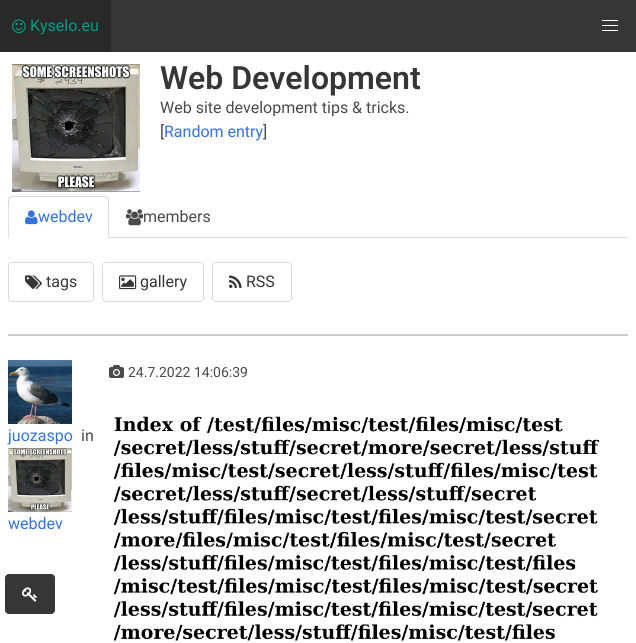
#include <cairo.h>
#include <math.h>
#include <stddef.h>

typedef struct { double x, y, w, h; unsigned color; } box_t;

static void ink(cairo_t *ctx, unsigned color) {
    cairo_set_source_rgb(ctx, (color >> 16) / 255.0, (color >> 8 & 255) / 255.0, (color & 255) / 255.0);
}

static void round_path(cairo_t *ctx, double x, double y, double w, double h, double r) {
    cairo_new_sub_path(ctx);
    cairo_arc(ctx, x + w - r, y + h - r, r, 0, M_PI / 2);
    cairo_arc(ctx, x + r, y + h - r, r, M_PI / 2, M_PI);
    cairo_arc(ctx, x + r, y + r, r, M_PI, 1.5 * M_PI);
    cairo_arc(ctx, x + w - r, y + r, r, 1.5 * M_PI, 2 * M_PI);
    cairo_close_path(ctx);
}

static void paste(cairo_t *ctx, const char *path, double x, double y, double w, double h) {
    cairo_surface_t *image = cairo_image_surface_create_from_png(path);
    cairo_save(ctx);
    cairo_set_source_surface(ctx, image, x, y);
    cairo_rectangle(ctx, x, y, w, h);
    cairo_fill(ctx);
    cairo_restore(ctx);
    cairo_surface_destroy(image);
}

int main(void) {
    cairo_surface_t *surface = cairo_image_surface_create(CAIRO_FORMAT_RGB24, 636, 643);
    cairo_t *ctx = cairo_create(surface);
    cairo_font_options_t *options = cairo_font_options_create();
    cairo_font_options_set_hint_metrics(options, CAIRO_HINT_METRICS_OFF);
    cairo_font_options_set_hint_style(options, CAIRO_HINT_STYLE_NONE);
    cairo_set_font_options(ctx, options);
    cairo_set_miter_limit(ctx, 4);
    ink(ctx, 0xFFFFFF);
    cairo_paint(ctx);
    ink(ctx, 0x363636);
    cairo_rectangle(ctx, 111, 0, 525, 52);
    cairo_fill(ctx);
    ink(ctx, 0x292929);
    cairo_rectangle(ctx, 0, 0, 111, 52);
    cairo_fill(ctx);
    paste(ctx, "media/1.png", 12, 19, 14, 15);
    cairo_select_font_face(ctx, "Roboto", CAIRO_FONT_SLANT_NORMAL, CAIRO_FONT_WEIGHT_NORMAL);
    cairo_set_font_size(ctx, 16);
    ink(ctx, 0x009E86);
    cairo_move_to(ctx, 30, 31);
    cairo_show_text(ctx, "Kyselo.eu");
    {
        static const box_t items[] = {
            {602, 20, 16, 1, 0xFFFFFF},
            {602, 25, 16, 1, 0xFFFFFF},
            {602, 30, 16, 1, 0xFFFFFF},
        };
        for (size_t i = 0; i < sizeof items / sizeof *items; i++) {
            ink(ctx, items[i].color);
            cairo_rectangle(ctx, items[i].x, items[i].y, items[i].w, items[i].h);
            cairo_fill(ctx);
        }
    }
    paste(ctx, "media/2.png", 12, 64, 128, 128);
    cairo_select_font_face(ctx, "Roboto SemiBold", CAIRO_FONT_SLANT_NORMAL, CAIRO_FONT_WEIGHT_NORMAL);
    cairo_set_font_size(ctx, 32);
    ink(ctx, 0x363636);
    cairo_move_to(ctx, 160, 89);
    cairo_show_text(ctx, "Web Development");
    cairo_select_font_face(ctx, "Roboto", CAIRO_FONT_SLANT_NORMAL, CAIRO_FONT_WEIGHT_NORMAL);
    cairo_set_font_size(ctx, 16);
    ink(ctx, 0x4A4A4A);
    cairo_move_to(ctx, 160, 113);
    cairo_show_text(ctx, "Web site development tips & tricks.");
    cairo_move_to(ctx, 160, 137);
    cairo_show_text(ctx, "[");
    ink(ctx, 0x3273DC);
    cairo_move_to(ctx, 164, 137);
    cairo_show_text(ctx, "Random entry");
    ink(ctx, 0x4A4A4A);
    cairo_move_to(ctx, 263, 137);
    cairo_show_text(ctx, "]");
    ink(ctx, 0xDBDBDB);
    cairo_rectangle(ctx, 109, 237, 519, 1);
    cairo_fill(ctx);
    cairo_new_path(ctx);
    cairo_move_to(ctx, 12, 196);
    cairo_line_to(ctx, 9, 197);
    cairo_line_to(ctx, 10, 198);
    cairo_line_to(ctx, 12, 197);
    cairo_line_to(ctx, 105, 197);
    cairo_line_to(ctx, 107, 198);
    cairo_line_to(ctx, 108, 197);
    cairo_line_to(ctx, 105, 196);
    cairo_close_path(ctx);
    cairo_fill(ctx);
    cairo_new_path(ctx);
    cairo_move_to(ctx, 109, 238);
    cairo_line_to(ctx, 109, 200);
    cairo_curve_to(ctx, 109, 199, 108, 198, 108, 197);
    cairo_line_to(ctx, 107, 198);
    cairo_curve_to(ctx, 109, 200, 108, 232, 108, 237);
    cairo_close_path(ctx);
    cairo_fill(ctx);
    cairo_new_path(ctx);
    cairo_move_to(ctx, 8, 238);
    cairo_line_to(ctx, 9, 237);
    cairo_curve_to(ctx, 9, 232, 8, 200, 10, 198);
    cairo_line_to(ctx, 9, 197);
    cairo_line_to(ctx, 8, 200);
    cairo_close_path(ctx);
    cairo_fill(ctx);
    paste(ctx, "media/3.png", 25, 210, 13, 15);
    ink(ctx, 0x3273DC);
    cairo_move_to(ctx, 38, 222);
    cairo_show_text(ctx, "webdev");
    paste(ctx, "media/4.png", 126, 209, 18, 17);
    ink(ctx, 0x4A4A4A);
    cairo_move_to(ctx, 143, 222);
    cairo_show_text(ctx, "members");
    round_path(ctx, 8.5, 262.5, 85, 39, 3.5);
    ink(ctx, 0xDBDBDB);
    cairo_set_line_width(ctx, 1);
    cairo_stroke(ctx);
    paste(ctx, "media/5.png", 25, 275, 17, 14);
    ink(ctx, 0x363636);
    cairo_move_to(ctx, 46, 287);
    cairo_show_text(ctx, "tags");
    round_path(ctx, 102.5, 262.5, 101, 39, 3.5);
    ink(ctx, 0xDBDBDB);
    cairo_stroke(ctx);
    paste(ctx, "media/6.png", 119, 275, 18, 15);
    ink(ctx, 0x363636);
    cairo_move_to(ctx, 140, 287);
    cairo_show_text(ctx, "gallery");
    round_path(ctx, 212.5, 262.5, 79, 39, 3.5);
    ink(ctx, 0xDBDBDB);
    cairo_stroke(ctx);
    paste(ctx, "media/7.png", 229, 275, 13, 13);
    ink(ctx, 0x363636);
    cairo_move_to(ctx, 246, 287);
    cairo_show_text(ctx, "RSS");
    ink(ctx, 0xCCCCCC);
    cairo_rectangle(ctx, 8, 334, 620, 2);
    cairo_fill(ctx);
    paste(ctx, "media/8.png", 109, 365, 15, 13);
    cairo_set_font_size(ctx, 14);
    ink(ctx, 0x4A4A4A);
    cairo_move_to(ctx, 128, 377);
    cairo_show_text(ctx, "24.7.2022 14:06:39");
    paste(ctx, "media/9.png", 113, 416, 486, 225);
    paste(ctx, "media/10.png", 8, 360, 64, 64);
    cairo_set_font_size(ctx, 16);
    ink(ctx, 0x3273DC);
    cairo_move_to(ctx, 8, 441);
    cairo_show_text(ctx, "juozaspo");
    ink(ctx, 0x4A4A4A);
    cairo_move_to(ctx, 81, 441);
    cairo_show_text(ctx, "in");
    paste(ctx, "media/11.png", 8, 448, 64, 64);
    ink(ctx, 0x3273DC);
    cairo_move_to(ctx, 8, 529);
    cairo_show_text(ctx, "webdev");
    ink(ctx, 0x363636);
    round_path(ctx, 5, 574, 50, 40, 4);
    cairo_fill(ctx);
    paste(ctx, "media/12.png", 22, 587, 15, 15);
    cairo_surface_write_to_png(surface, "image.png");
    cairo_font_options_destroy(options);
    cairo_destroy(ctx);
    cairo_surface_destroy(surface);
    return 0;
}
